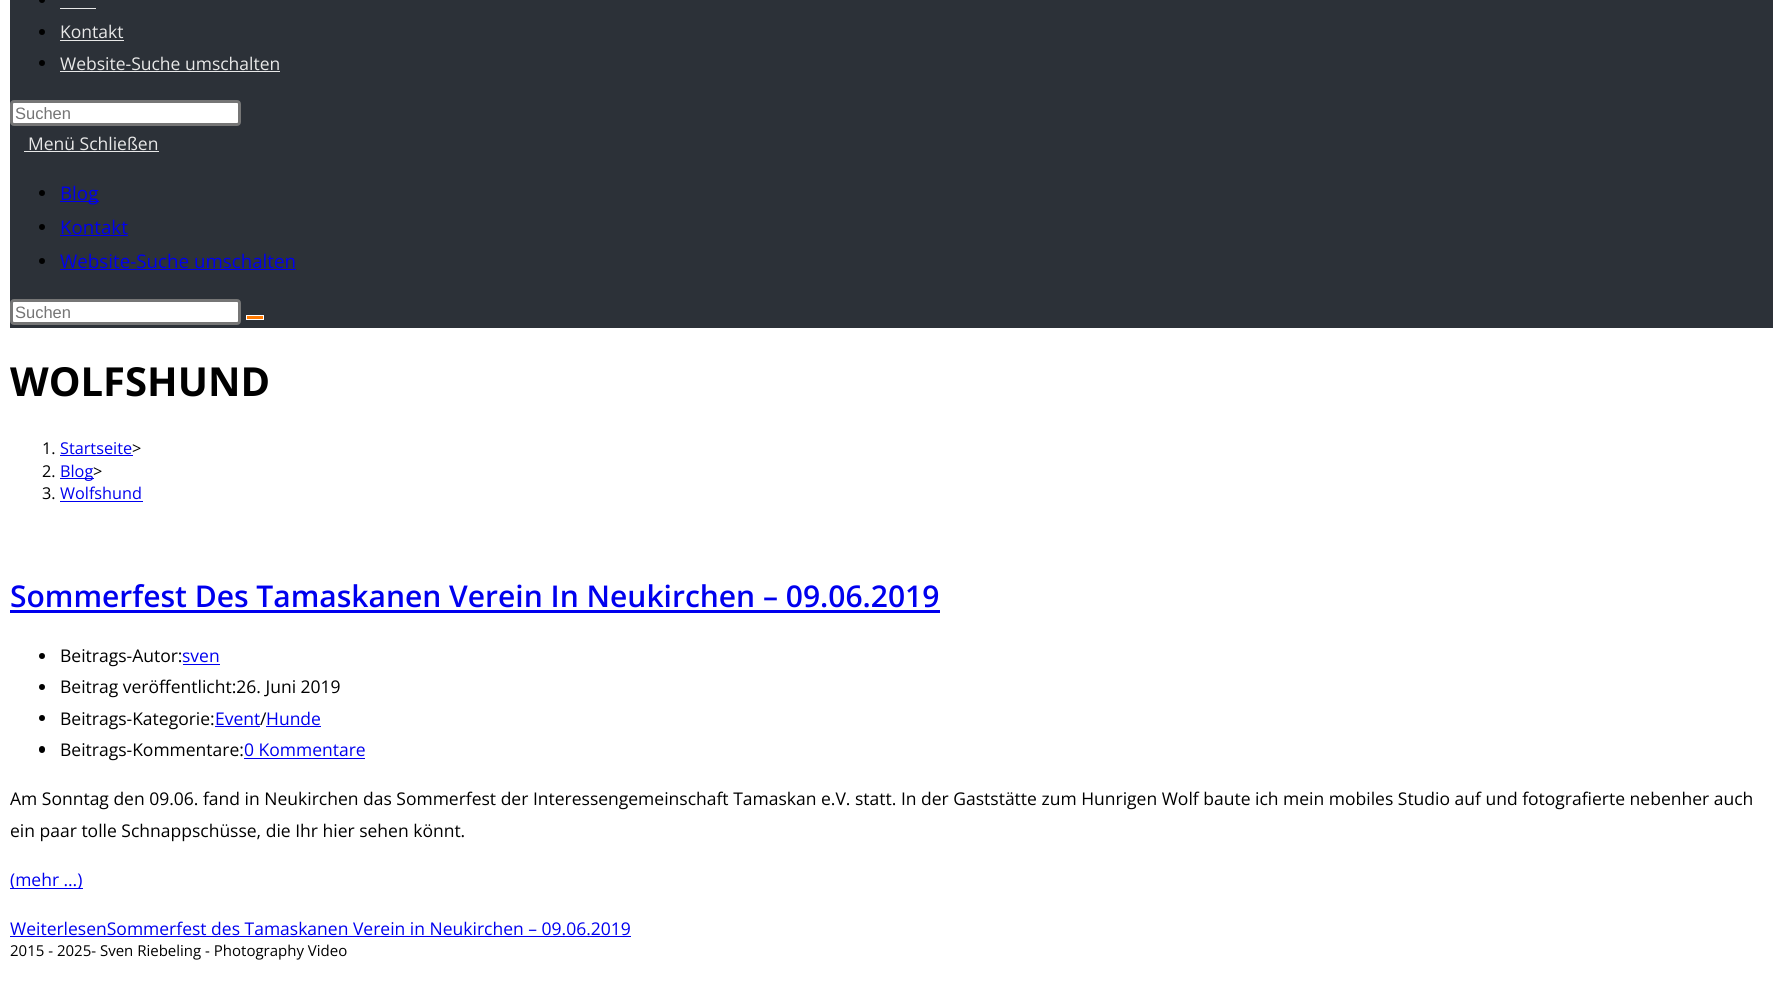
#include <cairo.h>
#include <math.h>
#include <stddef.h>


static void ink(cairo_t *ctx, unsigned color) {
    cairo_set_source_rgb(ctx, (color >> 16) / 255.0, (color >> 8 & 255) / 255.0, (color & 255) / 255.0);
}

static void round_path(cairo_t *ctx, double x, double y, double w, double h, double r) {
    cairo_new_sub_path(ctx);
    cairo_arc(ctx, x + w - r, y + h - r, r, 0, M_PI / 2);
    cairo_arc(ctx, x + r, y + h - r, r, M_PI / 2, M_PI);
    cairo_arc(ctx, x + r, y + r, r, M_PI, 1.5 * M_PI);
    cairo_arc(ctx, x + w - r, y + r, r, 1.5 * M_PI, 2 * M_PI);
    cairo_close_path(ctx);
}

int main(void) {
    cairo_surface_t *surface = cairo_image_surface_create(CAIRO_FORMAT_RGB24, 1782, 999);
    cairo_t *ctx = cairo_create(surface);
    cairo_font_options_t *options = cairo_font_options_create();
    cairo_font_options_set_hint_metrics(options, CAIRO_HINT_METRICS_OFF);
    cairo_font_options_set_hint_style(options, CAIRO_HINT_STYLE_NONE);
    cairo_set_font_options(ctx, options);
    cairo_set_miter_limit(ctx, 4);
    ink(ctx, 0xFFFFFF);
    cairo_paint(ctx);
    ink(ctx, 0x2C3138);
    cairo_rectangle(ctx, 10, 0, 1763, 328);
    cairo_fill(ctx);
    ink(ctx, 0x000000);
    cairo_arc(ctx, 42, 0, 3, 0, 2 * M_PI);
    cairo_fill(ctx);
    ink(ctx, 0xE8E8E8);
    cairo_rectangle(ctx, 60, 8, 36, 1);
    cairo_fill(ctx);
    ink(ctx, 0x000000);
    cairo_arc(ctx, 42, 32, 3, 0, 2 * M_PI);
    cairo_fill(ctx);
    cairo_select_font_face(ctx, "Open Sans", CAIRO_FONT_SLANT_NORMAL, CAIRO_FONT_WEIGHT_NORMAL);
    cairo_set_font_size(ctx, 17.5);
    ink(ctx, 0xE8E8E8);
    cairo_move_to(ctx, 60, 38);
    cairo_show_text(ctx, "Kontakt");
    cairo_rectangle(ctx, 60, 40, 64, 1);
    cairo_fill(ctx);
    ink(ctx, 0x000000);
    cairo_arc(ctx, 42, 63, 3, 0, 2 * M_PI);
    cairo_fill(ctx);
    ink(ctx, 0xE8E8E8);
    cairo_move_to(ctx, 60, 70);
    cairo_show_text(ctx, "Website-Suche umschalten");
    cairo_rectangle(ctx, 60, 71, 220, 1);
    cairo_fill(ctx);
    ink(ctx, 0xFFFFFF);
    round_path(ctx, 11.5, 101.5, 228, 23, 2.5);
    cairo_fill_preserve(ctx);
    ink(ctx, 0x767676);
    cairo_set_line_width(ctx, 3);
    cairo_stroke(ctx);
    cairo_select_font_face(ctx, "Liberation Sans", CAIRO_FONT_SLANT_NORMAL, CAIRO_FONT_WEIGHT_NORMAL);
    cairo_set_font_size(ctx, 16.5);
    ink(ctx, 0x757575);
    cairo_move_to(ctx, 15, 119);
    cairo_show_text(ctx, "Suchen");
    cairo_select_font_face(ctx, "Open Sans", CAIRO_FONT_SLANT_NORMAL, CAIRO_FONT_WEIGHT_NORMAL);
    cairo_set_font_size(ctx, 17.5);
    ink(ctx, 0xE8E8E8);
    cairo_move_to(ctx, 28, 150);
    cairo_show_text(ctx, "Menü Schließen");
    cairo_rectangle(ctx, 24, 151, 135, 1);
    cairo_fill(ctx);
    ink(ctx, 0x000000);
    cairo_arc(ctx, 42, 193, 3, 0, 2 * M_PI);
    cairo_fill(ctx);
    ink(ctx, 0x0000EE);
    cairo_rectangle(ctx, 60, 201, 39, 1);
    cairo_fill(ctx);
    cairo_set_font_size(ctx, 18.75);
    cairo_move_to(ctx, 60, 200);
    cairo_show_text(ctx, "Blog");
    ink(ctx, 0x000000);
    cairo_new_path(ctx);
    cairo_arc(ctx, 42, 227, 3, 0, 2 * M_PI);
    cairo_fill(ctx);
    ink(ctx, 0x0000EE);
    cairo_move_to(ctx, 60, 234);
    cairo_show_text(ctx, "Kontakt");
    cairo_rectangle(ctx, 60, 235, 68, 1);
    cairo_fill(ctx);
    ink(ctx, 0x000000);
    cairo_arc(ctx, 42, 261, 3, 0, 2 * M_PI);
    cairo_fill(ctx);
    ink(ctx, 0x0000EE);
    cairo_move_to(ctx, 60, 268);
    cairo_show_text(ctx, "Website-Suche umschalten");
    cairo_rectangle(ctx, 60, 269, 236, 1);
    cairo_fill(ctx);
    ink(ctx, 0xFFFFFF);
    round_path(ctx, 11.5, 300.5, 228, 23, 2.5);
    cairo_fill_preserve(ctx);
    ink(ctx, 0x767676);
    cairo_stroke(ctx);
    cairo_select_font_face(ctx, "Liberation Sans", CAIRO_FONT_SLANT_NORMAL, CAIRO_FONT_WEIGHT_NORMAL);
    cairo_set_font_size(ctx, 16.5);
    ink(ctx, 0x757575);
    cairo_move_to(ctx, 15, 318);
    cairo_show_text(ctx, "Suchen");
    ink(ctx, 0xFF7900);
    cairo_rectangle(ctx, 246.5, 315.5, 17, 4);
    cairo_fill_preserve(ctx);
    ink(ctx, 0xFFFFFF);
    cairo_set_line_width(ctx, 1);
    cairo_stroke(ctx);
    cairo_select_font_face(ctx, "Open Sans", CAIRO_FONT_SLANT_NORMAL, CAIRO_FONT_WEIGHT_BOLD);
    cairo_set_font_size(ctx, 40);
    ink(ctx, 0x000000);
    cairo_move_to(ctx, 10, 396);
    cairo_show_text(ctx, "WOLFSHUND");
    cairo_select_font_face(ctx, "Open Sans", CAIRO_FONT_SLANT_NORMAL, CAIRO_FONT_WEIGHT_NORMAL);
    cairo_set_font_size(ctx, 16.25);
    cairo_move_to(ctx, 42, 454);
    cairo_show_text(ctx, "1.");
    ink(ctx, 0x0000EE);
    cairo_move_to(ctx, 60, 454);
    cairo_show_text(ctx, "Startseite");
    cairo_rectangle(ctx, 60, 455, 73, 1);
    cairo_fill(ctx);
    ink(ctx, 0x000000);
    cairo_move_to(ctx, 132, 454);
    cairo_show_text(ctx, ">");
    cairo_move_to(ctx, 42, 477);
    cairo_show_text(ctx, "2.");
    ink(ctx, 0x0000EE);
    cairo_rectangle(ctx, 60, 478, 34, 1);
    cairo_fill(ctx);
    cairo_move_to(ctx, 60, 477);
    cairo_show_text(ctx, "Blog");
    ink(ctx, 0x000000);
    cairo_move_to(ctx, 93, 477);
    cairo_show_text(ctx, ">");
    cairo_move_to(ctx, 42, 499);
    cairo_show_text(ctx, "3.");
    ink(ctx, 0x0000EE);
    cairo_move_to(ctx, 60, 499);
    cairo_show_text(ctx, "Wolfshund");
    cairo_rectangle(ctx, 60, 501, 83, 1);
    cairo_fill(ctx);
    cairo_select_font_face(ctx, "Open Sans SemiBold", CAIRO_FONT_SLANT_NORMAL, CAIRO_FONT_WEIGHT_NORMAL);
    cairo_set_font_size(ctx, 30);
    cairo_move_to(ctx, 10, 607);
    cairo_show_text(ctx, "Sommerfest Des Tamaskanen Verein In Neukirchen – 09.06.2019");
    cairo_rectangle(ctx, 10, 610, 930, 3);
    cairo_fill(ctx);
    ink(ctx, 0x000000);
    cairo_arc(ctx, 42, 656, 3, 0, 2 * M_PI);
    cairo_fill(ctx);
    cairo_select_font_face(ctx, "Open Sans", CAIRO_FONT_SLANT_NORMAL, CAIRO_FONT_WEIGHT_NORMAL);
    cairo_set_font_size(ctx, 17.5);
    cairo_move_to(ctx, 60, 662);
    cairo_show_text(ctx, "Beitrags-Autor:");
    ink(ctx, 0x0000EE);
    cairo_move_to(ctx, 182, 662);
    cairo_show_text(ctx, "sven");
    cairo_rectangle(ctx, 183, 664, 37, 1);
    cairo_fill(ctx);
    ink(ctx, 0x000000);
    cairo_arc(ctx, 42, 687, 3, 0, 2 * M_PI);
    cairo_fill(ctx);
    cairo_move_to(ctx, 60, 693);
    cairo_show_text(ctx, "Beitrag veröffentlicht:26. Juni 2019");
    cairo_new_path(ctx);
    cairo_arc(ctx, 42, 718, 3, 0, 2 * M_PI);
    cairo_fill(ctx);
    cairo_move_to(ctx, 60, 725);
    cairo_show_text(ctx, "Beitrags-Kategorie:");
    ink(ctx, 0x0000EE);
    cairo_move_to(ctx, 215, 725);
    cairo_show_text(ctx, "Event");
    cairo_rectangle(ctx, 215, 726, 45, 1);
    cairo_fill(ctx);
    ink(ctx, 0x000000);
    cairo_move_to(ctx, 260, 725);
    cairo_show_text(ctx, "/");
    ink(ctx, 0x0000EE);
    cairo_move_to(ctx, 266, 725);
    cairo_show_text(ctx, "Hunde");
    cairo_rectangle(ctx, 266, 726, 55, 1);
    cairo_fill(ctx);
    ink(ctx, 0x000000);
    round_path(ctx, 39, 746, 6, 7, 3);
    cairo_fill(ctx);
    cairo_move_to(ctx, 60, 756);
    cairo_show_text(ctx, "Beitrags-Kommentare:");
    ink(ctx, 0x0000EE);
    cairo_move_to(ctx, 244, 756);
    cairo_show_text(ctx, "0 Kommentare");
    cairo_rectangle(ctx, 244, 758, 121, 1);
    cairo_fill(ctx);
    ink(ctx, 0x000000);
    cairo_move_to(ctx, 10, 805);
    cairo_show_text(ctx, "Am Sonntag den 09.06. fand in Neukirchen das Sommerfest der Interessengemeinschaft Tamaskan e.V. statt. In der Gaststätte zum Hunrigen Wolf baute ich mein mobiles Studio auf und fotografierte nebenher auch");
    cairo_move_to(ctx, 10, 837);
    cairo_show_text(ctx, "ein paar tolle Schnappschüsse, die Ihr hier sehen könnt.");
    ink(ctx, 0x0000EE);
    cairo_rectangle(ctx, 10, 888, 73, 1);
    cairo_fill(ctx);
    cairo_move_to(ctx, 10, 886);
    cairo_show_text(ctx, "(mehr …)");
    cairo_move_to(ctx, 10, 935);
    cairo_show_text(ctx, "WeiterlesenSommerfest des Tamaskanen Verein in Neukirchen – 09.06.2019");
    cairo_rectangle(ctx, 10, 936, 621, 1);
    cairo_fill(ctx);
    cairo_set_font_size(ctx, 15);
    ink(ctx, 0x000000);
    cairo_move_to(ctx, 10, 956);
    cairo_show_text(ctx, "2015 - 2025- Sven Riebeling - Photography Video");
    cairo_surface_write_to_png(surface, "image.png");
    cairo_font_options_destroy(options);
    cairo_destroy(ctx);
    cairo_surface_destroy(surface);
    return 0;
}
